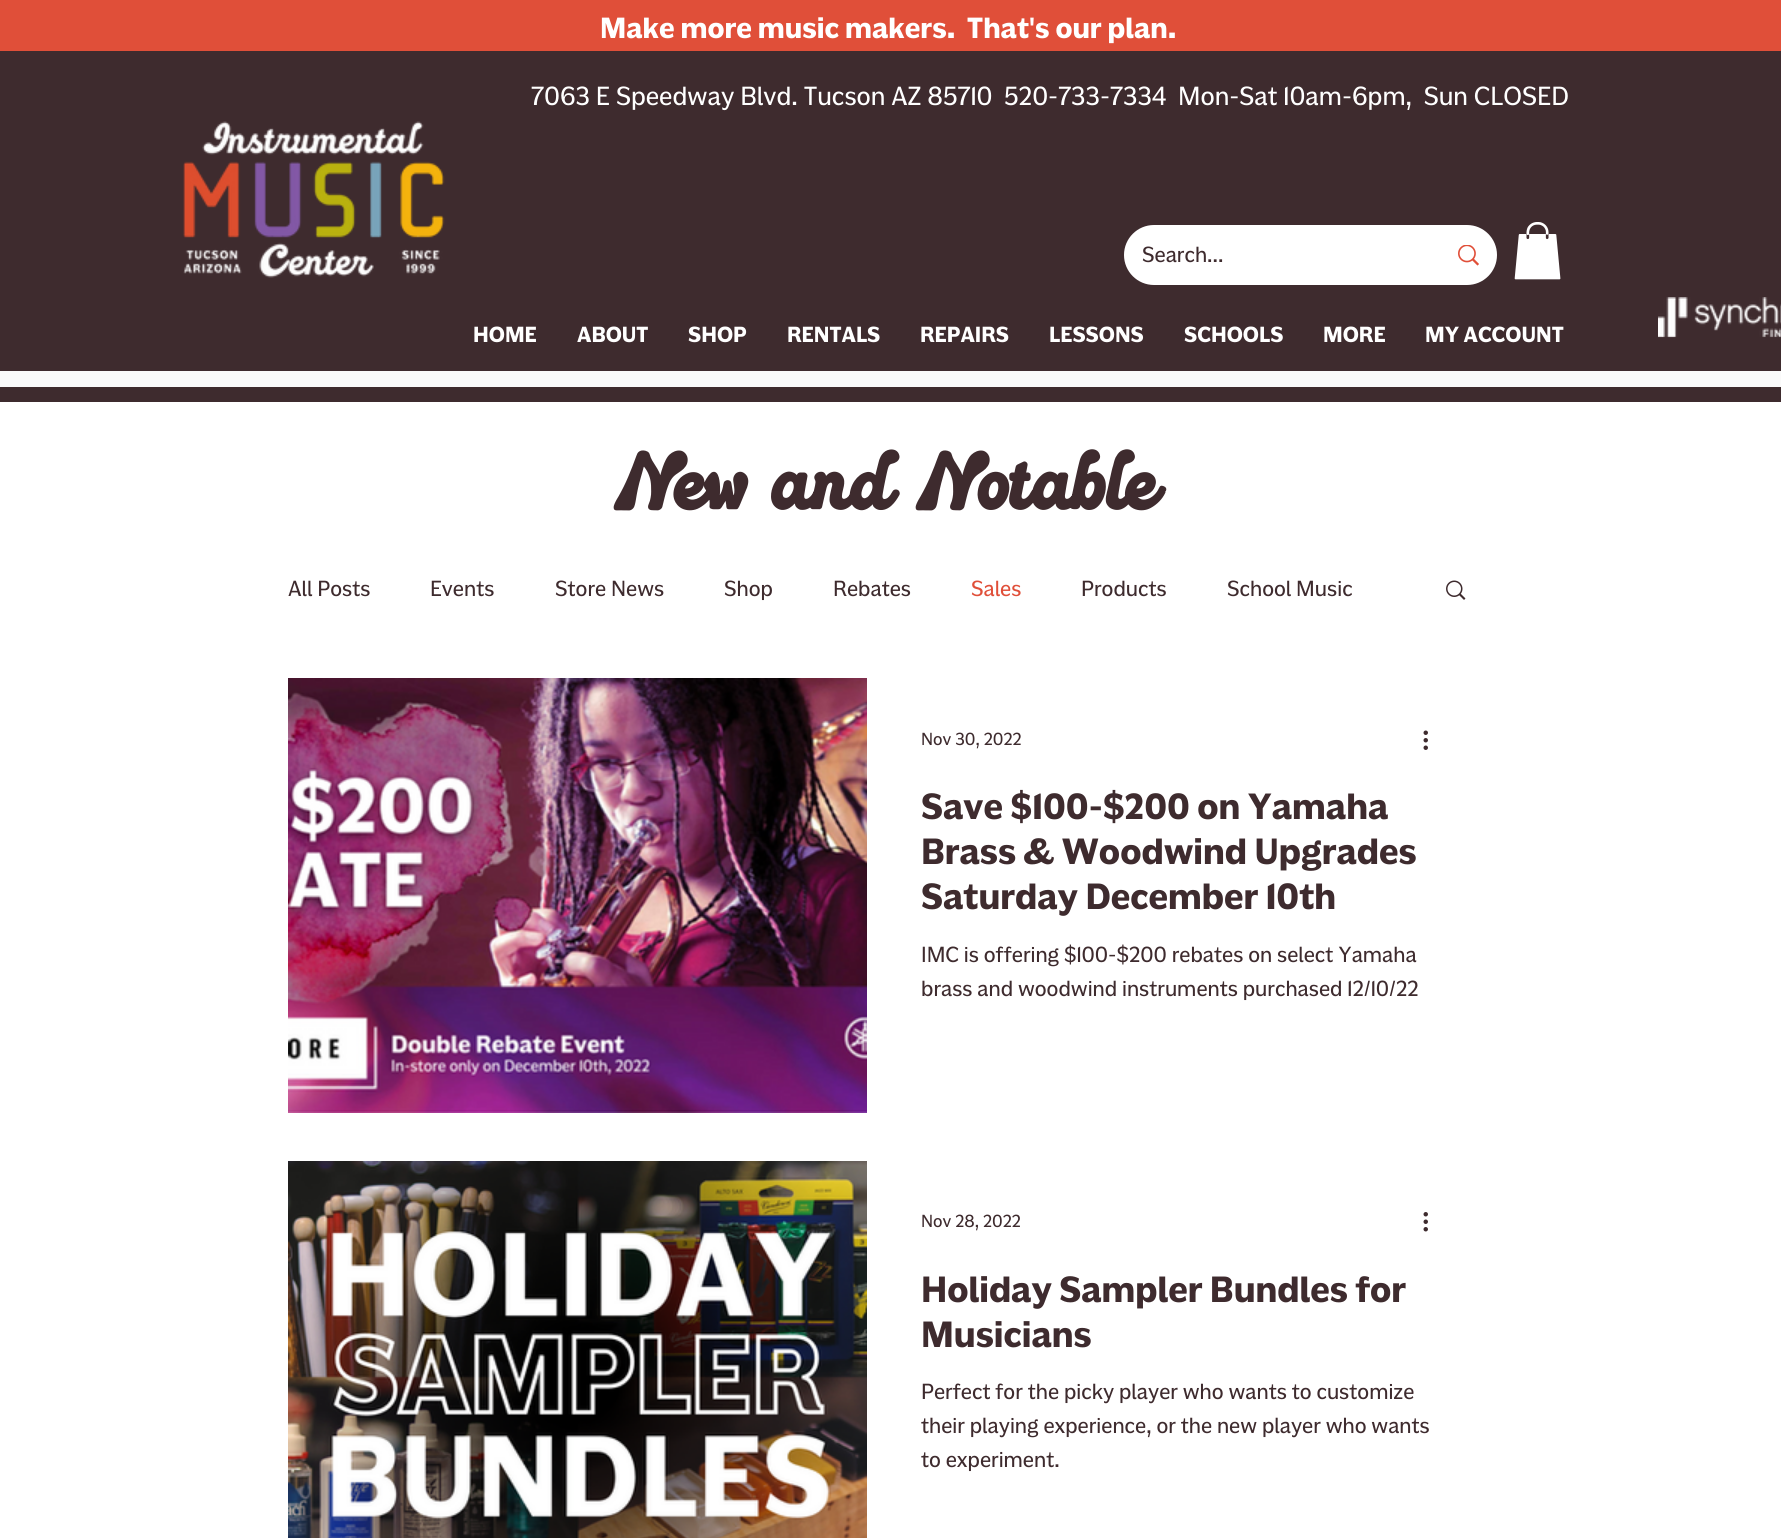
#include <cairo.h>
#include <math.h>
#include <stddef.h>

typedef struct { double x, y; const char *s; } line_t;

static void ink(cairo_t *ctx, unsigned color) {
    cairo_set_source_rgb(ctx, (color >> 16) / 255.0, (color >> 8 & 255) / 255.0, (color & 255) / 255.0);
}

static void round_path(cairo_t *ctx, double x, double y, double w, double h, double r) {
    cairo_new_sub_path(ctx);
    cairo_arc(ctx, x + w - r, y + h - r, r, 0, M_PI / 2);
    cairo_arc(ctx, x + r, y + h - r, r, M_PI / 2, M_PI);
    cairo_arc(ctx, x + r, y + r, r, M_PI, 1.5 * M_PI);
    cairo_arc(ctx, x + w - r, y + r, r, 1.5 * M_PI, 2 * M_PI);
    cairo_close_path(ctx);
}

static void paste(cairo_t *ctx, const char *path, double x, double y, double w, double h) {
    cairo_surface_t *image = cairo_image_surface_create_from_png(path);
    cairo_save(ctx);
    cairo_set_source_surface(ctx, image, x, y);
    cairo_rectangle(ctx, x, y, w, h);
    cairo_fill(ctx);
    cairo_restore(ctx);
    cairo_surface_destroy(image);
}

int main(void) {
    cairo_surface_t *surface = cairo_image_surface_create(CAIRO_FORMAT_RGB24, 1781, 1538);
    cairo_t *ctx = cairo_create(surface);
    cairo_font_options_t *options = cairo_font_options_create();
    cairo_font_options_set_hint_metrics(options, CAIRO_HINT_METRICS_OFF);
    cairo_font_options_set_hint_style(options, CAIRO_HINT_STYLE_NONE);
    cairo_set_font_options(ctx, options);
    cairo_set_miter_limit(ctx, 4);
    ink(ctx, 0xFFFFFF);
    cairo_paint(ctx);
    ink(ctx, 0xE04F39);
    cairo_rectangle(ctx, 0, 0, 1781, 51);
    cairo_fill(ctx);
    cairo_select_font_face(ctx, "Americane", CAIRO_FONT_SLANT_NORMAL, CAIRO_FONT_WEIGHT_BOLD);
    cairo_set_font_size(ctx, 30);
    ink(ctx, 0xFFFFFF);
    cairo_move_to(ctx, 600, 38);
    cairo_show_text(ctx, "Make more music makers.  That's our plan.");
    ink(ctx, 0x3E2B2E);
    cairo_rectangle(ctx, 0, 51, 1781, 351);
    cairo_fill(ctx);
    cairo_select_font_face(ctx, "Americane", CAIRO_FONT_SLANT_NORMAL, CAIRO_FONT_WEIGHT_NORMAL);
    cairo_set_font_size(ctx, 27);
    ink(ctx, 0xFFFFFF);
    {
        static const line_t items[] = {
            {531, 105, "7063 E Speedway Blvd. Tucson AZ 85710"},
            {1004, 105, "520-733-7334"},
            {1178, 105, "Mon-Sat 10am-6pm,  Sun CLOSED"},
        };
        for (size_t i = 0; i < sizeof items / sizeof *items; i++) {
            cairo_move_to(ctx, items[i].x, items[i].y);
            cairo_show_text(ctx, items[i].s);
        }
    }
    paste(ctx, "media/1.png", 183, 121, 262, 157);
    round_path(ctx, 1124, 225, 373, 60, 30);
    cairo_fill(ctx);
    cairo_set_font_size(ctx, 22.5);
    ink(ctx, 0x3E2B2E);
    cairo_move_to(ctx, 1142, 262);
    cairo_show_text(ctx, "Search...");
    paste(ctx, "media/2.png", 1458, 245, 21, 21);
    paste(ctx, "media/3.png", 1514, 222, 47, 58);
    cairo_select_font_face(ctx, "Americane", CAIRO_FONT_SLANT_NORMAL, CAIRO_FONT_WEIGHT_BOLD);
    ink(ctx, 0xFFFFFF);
    {
        static const line_t items[] = {
            {473, 342, "HOME"},
            {577, 342, "ABOUT"},
            {688, 342, "SHOP"},
            {787, 342, "RENTALS"},
            {920, 342, "REPAIRS"},
            {1049, 342, "LESSONS"},
            {1184, 342, "SCHOOLS"},
            {1323, 342, "MORE"},
            {1425, 342, "MY ACCOUNT"},
        };
        for (size_t i = 0; i < sizeof items / sizeof *items; i++) {
            cairo_move_to(ctx, items[i].x, items[i].y);
            cairo_show_text(ctx, items[i].s);
        }
    }
    paste(ctx, "media/4.png", 1658, 297, 123, 41);
    ink(ctx, 0xFAFAFA);
    cairo_rectangle(ctx, 0, 371, 1781, 16);
    cairo_fill(ctx);
    cairo_select_font_face(ctx, "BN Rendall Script", CAIRO_FONT_SLANT_NORMAL, CAIRO_FONT_WEIGHT_BOLD);
    cairo_set_font_size(ctx, 75);
    ink(ctx, 0x3E2B2E);
    cairo_move_to(ctx, 617, 510);
    cairo_show_text(ctx, "New and Notable");
    cairo_select_font_face(ctx, "Americane", CAIRO_FONT_SLANT_NORMAL, CAIRO_FONT_WEIGHT_NORMAL);
    cairo_set_font_size(ctx, 22.5);
    {
        static const line_t items[] = {
            {288, 596, "All Posts"},
            {430, 596, "Events"},
            {555, 596, "Store News"},
            {724, 596, "Shop"},
            {833, 596, "Rebates"},
        };
        for (size_t i = 0; i < sizeof items / sizeof *items; i++) {
            cairo_move_to(ctx, items[i].x, items[i].y);
            cairo_show_text(ctx, items[i].s);
        }
    }
    ink(ctx, 0xE04F39);
    cairo_move_to(ctx, 971, 596);
    cairo_show_text(ctx, "Sales");
    ink(ctx, 0x3E2B2E);
    cairo_move_to(ctx, 1081, 596);
    cairo_show_text(ctx, "Products");
    cairo_move_to(ctx, 1227, 596);
    cairo_show_text(ctx, "School Music");
    paste(ctx, "media/5.png", 1446, 580, 20, 20);
    paste(ctx, "media/6.png", 288, 678, 579, 435);
    cairo_set_font_size(ctx, 18);
    cairo_move_to(ctx, 921, 745);
    cairo_show_text(ctx, "Nov 30, 2022");
    paste(ctx, "media/7.png", 1423, 730, 5, 20);
    cairo_select_font_face(ctx, "Americane", CAIRO_FONT_SLANT_NORMAL, CAIRO_FONT_WEIGHT_BOLD);
    cairo_set_font_size(ctx, 37.5);
    {
        static const line_t items[] = {
            {921, 819, "Save $100-$200 on Yamaha"},
            {921, 864, "Brass & Woodwind Upgrades"},
            {921, 909, "Saturday December 10th"},
        };
        for (size_t i = 0; i < sizeof items / sizeof *items; i++) {
            cairo_move_to(ctx, items[i].x, items[i].y);
            cairo_show_text(ctx, items[i].s);
        }
    }
    cairo_select_font_face(ctx, "Americane", CAIRO_FONT_SLANT_NORMAL, CAIRO_FONT_WEIGHT_NORMAL);
    cairo_set_font_size(ctx, 22.5);
    cairo_move_to(ctx, 921, 962);
    cairo_show_text(ctx, "IMC is offering $100-$200 rebates on select Yamaha");
    cairo_move_to(ctx, 921, 996);
    cairo_show_text(ctx, "brass and woodwind instruments purchased 12/10/22");
    paste(ctx, "media/8.png", 288, 1161, 579, 377);
    cairo_set_font_size(ctx, 18);
    cairo_move_to(ctx, 921, 1227);
    cairo_show_text(ctx, "Nov 28, 2022");
    paste(ctx, "media/9.png", 1423, 1212, 5, 20);
    cairo_select_font_face(ctx, "Americane", CAIRO_FONT_SLANT_NORMAL, CAIRO_FONT_WEIGHT_BOLD);
    cairo_set_font_size(ctx, 37.5);
    cairo_move_to(ctx, 921, 1302);
    cairo_show_text(ctx, "Holiday Sampler Bundles for");
    cairo_move_to(ctx, 921, 1347);
    cairo_show_text(ctx, "Musicians");
    cairo_select_font_face(ctx, "Americane", CAIRO_FONT_SLANT_NORMAL, CAIRO_FONT_WEIGHT_NORMAL);
    cairo_set_font_size(ctx, 22.5);
    {
        static const line_t items[] = {
            {921, 1399, "Perfect for the picky player who wants to customize"},
            {921, 1433, "their playing experience, or the new player who wants"},
            {921, 1467, "to experiment."},
        };
        for (size_t i = 0; i < sizeof items / sizeof *items; i++) {
            cairo_move_to(ctx, items[i].x, items[i].y);
            cairo_show_text(ctx, items[i].s);
        }
    }
    cairo_surface_write_to_png(surface, "image.png");
    cairo_font_options_destroy(options);
    cairo_destroy(ctx);
    cairo_surface_destroy(surface);
    return 0;
}
